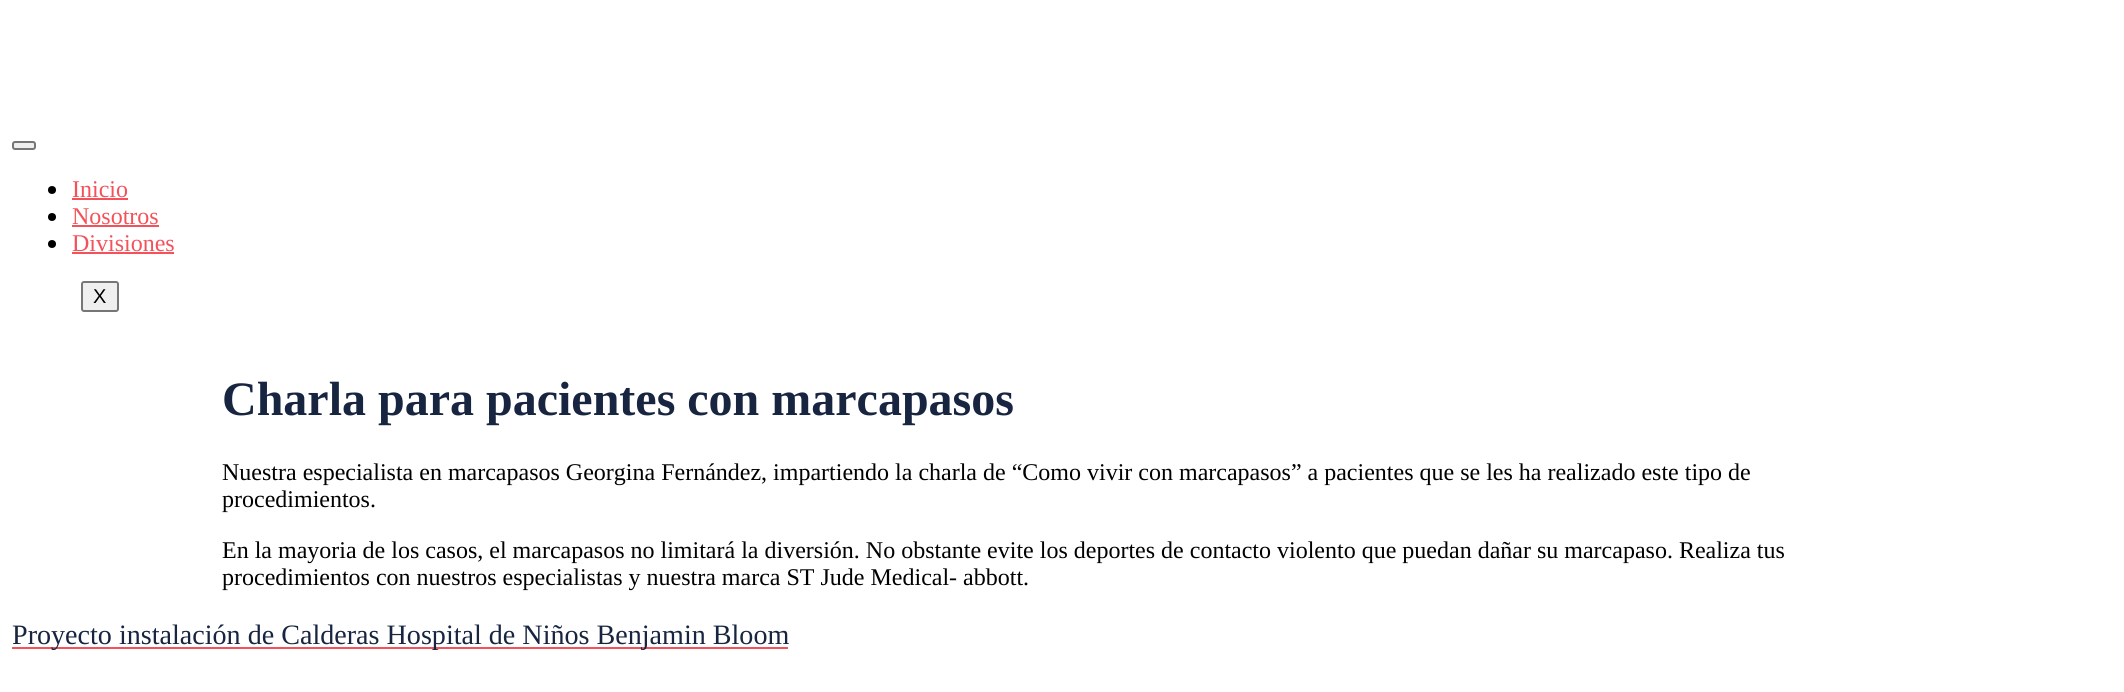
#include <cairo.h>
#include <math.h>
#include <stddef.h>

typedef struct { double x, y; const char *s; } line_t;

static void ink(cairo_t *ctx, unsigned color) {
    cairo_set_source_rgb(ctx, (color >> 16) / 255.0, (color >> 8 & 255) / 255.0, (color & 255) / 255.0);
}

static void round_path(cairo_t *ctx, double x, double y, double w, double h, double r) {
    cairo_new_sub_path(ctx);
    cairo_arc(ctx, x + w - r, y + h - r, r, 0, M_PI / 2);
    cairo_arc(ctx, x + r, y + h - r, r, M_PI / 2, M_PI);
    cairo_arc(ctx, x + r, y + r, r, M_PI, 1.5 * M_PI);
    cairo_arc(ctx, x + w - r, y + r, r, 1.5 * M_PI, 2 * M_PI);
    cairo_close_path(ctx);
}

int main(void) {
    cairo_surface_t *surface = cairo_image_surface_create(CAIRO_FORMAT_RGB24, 2124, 692);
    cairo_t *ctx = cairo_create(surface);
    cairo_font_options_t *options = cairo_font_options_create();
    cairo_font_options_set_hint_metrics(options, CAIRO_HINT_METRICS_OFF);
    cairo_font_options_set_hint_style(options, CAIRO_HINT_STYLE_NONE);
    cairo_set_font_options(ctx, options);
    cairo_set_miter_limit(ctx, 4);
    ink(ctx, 0xFFFFFF);
    cairo_paint(ctx);
    ink(ctx, 0xEFEFEF);
    round_path(ctx, 13, 142, 22, 7, 2);
    cairo_fill_preserve(ctx);
    ink(ctx, 0x767676);
    cairo_stroke(ctx);
    ink(ctx, 0x000000);
    cairo_arc(ctx, 52, 190, 4, 0, 2 * M_PI);
    cairo_fill(ctx);
    cairo_select_font_face(ctx, "Liberation Serif", CAIRO_FONT_SLANT_NORMAL, CAIRO_FONT_WEIGHT_NORMAL);
    cairo_set_font_size(ctx, 24);
    ink(ctx, 0xF3525A);
    cairo_move_to(ctx, 72, 197);
    cairo_show_text(ctx, "Inicio");
    cairo_rectangle(ctx, 72, 198, 56, 2);
    cairo_fill(ctx);
    ink(ctx, 0x000000);
    cairo_arc(ctx, 52, 217, 4, 0, 2 * M_PI);
    cairo_fill(ctx);
    ink(ctx, 0xF3525A);
    cairo_move_to(ctx, 72, 224);
    cairo_show_text(ctx, "Nosotros");
    cairo_rectangle(ctx, 72, 225, 87, 2);
    cairo_fill(ctx);
    ink(ctx, 0x000000);
    cairo_arc(ctx, 52, 244, 4, 0, 2 * M_PI);
    cairo_fill(ctx);
    ink(ctx, 0xF3525A);
    cairo_move_to(ctx, 72, 251);
    cairo_show_text(ctx, "Divisiones");
    cairo_rectangle(ctx, 72, 252, 102, 2);
    cairo_fill(ctx);
    ink(ctx, 0xEFEFEF);
    round_path(ctx, 82, 282, 36, 29, 2);
    cairo_fill_preserve(ctx);
    ink(ctx, 0x767676);
    cairo_stroke(ctx);
    cairo_select_font_face(ctx, "Liberation Sans", CAIRO_FONT_SLANT_NORMAL, CAIRO_FONT_WEIGHT_NORMAL);
    cairo_set_font_size(ctx, 20);
    ink(ctx, 0x000000);
    cairo_move_to(ctx, 93, 303);
    cairo_show_text(ctx, "X");
    cairo_select_font_face(ctx, "Liberation Serif", CAIRO_FONT_SLANT_NORMAL, CAIRO_FONT_WEIGHT_BOLD);
    cairo_set_font_size(ctx, 48);
    ink(ctx, 0x172541);
    cairo_move_to(ctx, 222, 415);
    cairo_show_text(ctx, "Charla para pacientes con marcapasos");
    cairo_select_font_face(ctx, "Liberation Serif", CAIRO_FONT_SLANT_NORMAL, CAIRO_FONT_WEIGHT_NORMAL);
    cairo_set_font_size(ctx, 24);
    ink(ctx, 0x000000);
    {
        static const line_t items[] = {
            {222, 480, "Nuestra especialista en marcapasos Georgina Fernández, impartiendo la charla de “Como vivir con marcapasos” a pacientes que se les ha realizado este tipo de"},
            {222, 507, "procedimientos."},
            {222, 558, "En la mayoria de los casos, el marcapasos no limitará la diversión. No obstante evite los deportes de contacto violento que puedan dañar su marcapaso. Realiza tus"},
            {222, 585, "procedimientos con nuestros especialistas y nuestra marca ST Jude Medical- abbott."},
        };
        for (size_t i = 0; i < sizeof items / sizeof *items; i++) {
            cairo_move_to(ctx, items[i].x, items[i].y);
            cairo_show_text(ctx, items[i].s);
        }
    }
    ink(ctx, 0xF3525A);
    cairo_rectangle(ctx, 12, 647, 776, 2);
    cairo_fill(ctx);
    cairo_set_font_size(ctx, 28.1);
    ink(ctx, 0x172541);
    cairo_move_to(ctx, 12, 644);
    cairo_show_text(ctx, "Proyecto instalación de Calderas Hospital de Niños Benjamin Bloom");
    cairo_surface_write_to_png(surface, "image.png");
    cairo_font_options_destroy(options);
    cairo_destroy(ctx);
    cairo_surface_destroy(surface);
    return 0;
}
